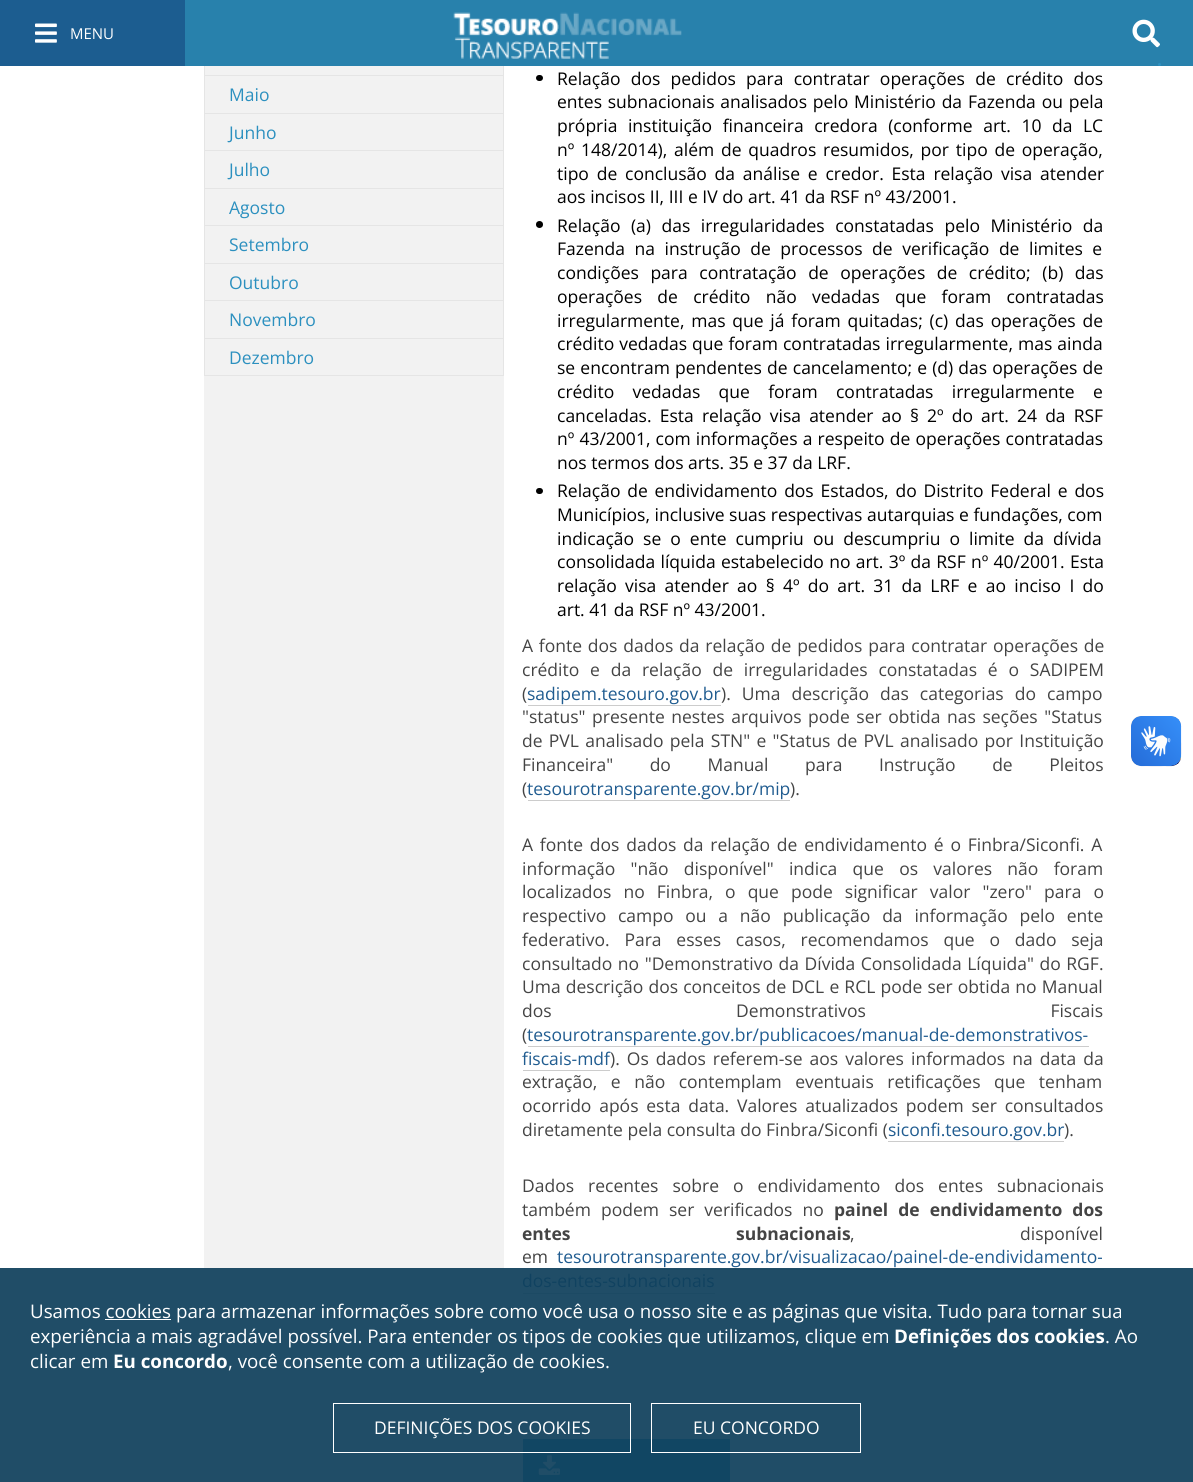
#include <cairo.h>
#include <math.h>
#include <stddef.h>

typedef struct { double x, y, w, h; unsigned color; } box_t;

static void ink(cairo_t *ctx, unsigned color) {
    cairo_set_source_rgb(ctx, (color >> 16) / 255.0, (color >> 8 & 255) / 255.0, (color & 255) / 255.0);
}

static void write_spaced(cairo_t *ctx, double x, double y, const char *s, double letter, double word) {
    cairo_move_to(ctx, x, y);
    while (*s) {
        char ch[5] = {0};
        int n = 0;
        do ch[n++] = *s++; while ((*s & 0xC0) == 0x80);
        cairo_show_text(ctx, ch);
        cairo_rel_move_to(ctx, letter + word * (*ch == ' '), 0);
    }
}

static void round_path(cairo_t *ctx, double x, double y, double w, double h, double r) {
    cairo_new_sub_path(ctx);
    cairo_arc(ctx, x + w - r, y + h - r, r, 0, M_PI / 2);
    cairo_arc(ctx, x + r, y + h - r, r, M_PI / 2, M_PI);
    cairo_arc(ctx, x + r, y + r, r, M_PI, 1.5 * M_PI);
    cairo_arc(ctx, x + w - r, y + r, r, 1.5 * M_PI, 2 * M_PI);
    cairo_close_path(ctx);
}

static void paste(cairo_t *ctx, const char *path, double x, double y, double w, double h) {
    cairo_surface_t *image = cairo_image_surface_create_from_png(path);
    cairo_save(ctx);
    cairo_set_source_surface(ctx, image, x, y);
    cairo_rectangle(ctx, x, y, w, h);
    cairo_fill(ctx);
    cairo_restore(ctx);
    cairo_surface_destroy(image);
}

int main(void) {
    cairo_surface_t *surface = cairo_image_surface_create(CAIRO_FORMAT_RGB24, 1193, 1482);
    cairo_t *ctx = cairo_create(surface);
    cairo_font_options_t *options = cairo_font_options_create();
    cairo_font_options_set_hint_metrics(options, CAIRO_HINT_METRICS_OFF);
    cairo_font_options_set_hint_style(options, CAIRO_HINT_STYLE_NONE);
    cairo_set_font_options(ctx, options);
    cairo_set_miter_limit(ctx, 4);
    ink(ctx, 0xFFFFFF);
    cairo_paint(ctx);
    {
        static const box_t items[] = {
            {0, 1268, 1193, 214, 0x204D67},
            {185, 0, 1008, 66, 0x2881AC},
            {0, 0, 185, 66, 0x1C5D90},
        };
        for (size_t i = 0; i < sizeof items / sizeof *items; i++) {
            ink(ctx, items[i].color);
            cairo_rectangle(ctx, items[i].x, items[i].y, items[i].w, items[i].h);
            cairo_fill(ctx);
        }
    }
    paste(ctx, "media/1.png", 35, 23, 22, 20);
    cairo_select_font_face(ctx, "Open Sans", CAIRO_FONT_SLANT_NORMAL, CAIRO_FONT_WEIGHT_NORMAL);
    cairo_set_font_size(ctx, 15);
    ink(ctx, 0xFFFFFF);
    cairo_move_to(ctx, 70, 39);
    cairo_show_text(ctx, "MENU");
    paste(ctx, "media/2.png", 1132, 19, 28, 29);
    ink(ctx, 0x2C90BF);
    cairo_arc(ctx, 1159.5, 64.5, 1.5, 0, 2 * M_PI);
    cairo_fill(ctx);
    paste(ctx, "media/3.png", 453, 12, 229, 47);
    {
        static const box_t items[] = {
            {204, 66, 300, 1202, 0xF2F2F2},
            {503, 66, 1, 310, 0xE5E5E5},
            {204, 66, 1, 310, 0xE5E5E5},
            {205, 75, 298, 1, 0xE5E5E5},
        };
        for (size_t i = 0; i < sizeof items / sizeof *items; i++) {
            ink(ctx, items[i].color);
            cairo_rectangle(ctx, items[i].x, items[i].y, items[i].w, items[i].h);
            cairo_fill(ctx);
        }
    }
    cairo_set_font_size(ctx, 17.5);
    ink(ctx, 0x2C90BF);
    cairo_move_to(ctx, 229, 101);
    cairo_show_text(ctx, "Maio");
    ink(ctx, 0xE5E5E5);
    cairo_rectangle(ctx, 205, 113, 298, 1);
    cairo_fill(ctx);
    ink(ctx, 0x2C90BF);
    cairo_move_to(ctx, 229, 139);
    cairo_show_text(ctx, "Junho");
    ink(ctx, 0xE5E5E5);
    cairo_rectangle(ctx, 205, 150, 298, 1);
    cairo_fill(ctx);
    ink(ctx, 0x2C90BF);
    cairo_move_to(ctx, 229, 176);
    cairo_show_text(ctx, "Julho");
    ink(ctx, 0xE5E5E5);
    cairo_rectangle(ctx, 205, 188, 298, 1);
    cairo_fill(ctx);
    ink(ctx, 0x2C90BF);
    cairo_move_to(ctx, 229, 214);
    cairo_show_text(ctx, "Agosto");
    ink(ctx, 0xE5E5E5);
    cairo_rectangle(ctx, 205, 225, 298, 1);
    cairo_fill(ctx);
    ink(ctx, 0x2C90BF);
    cairo_move_to(ctx, 229, 251);
    cairo_show_text(ctx, "Setembro");
    ink(ctx, 0xE5E5E5);
    cairo_rectangle(ctx, 205, 263, 298, 1);
    cairo_fill(ctx);
    ink(ctx, 0x2C90BF);
    cairo_move_to(ctx, 229, 289);
    cairo_show_text(ctx, "Outubro");
    ink(ctx, 0xE5E5E5);
    cairo_rectangle(ctx, 205, 300, 298, 1);
    cairo_fill(ctx);
    ink(ctx, 0x2C90BF);
    cairo_move_to(ctx, 229, 326);
    cairo_show_text(ctx, "Novembro");
    ink(ctx, 0xE5E5E5);
    cairo_rectangle(ctx, 205, 338, 298, 1);
    cairo_fill(ctx);
    cairo_rectangle(ctx, 205, 375, 298, 1);
    cairo_fill(ctx);
    ink(ctx, 0x2C90BF);
    cairo_move_to(ctx, 229, 364);
    cairo_show_text(ctx, "Dezembro");
    ink(ctx, 0x000000);
    round_path(ctx, 536, 75, 7, 6, 3);
    cairo_fill(ctx);
    write_spaced(ctx, 557, 85, "Relação dos pedidos para contratar operações de crédito dos", 0, 5.75);
    write_spaced(ctx, 557, 108, "entes subnacionais analisados pelo Ministério da Fazenda ou pela", 0, 1.25);
    write_spaced(ctx, 557, 132, "própria instituição financeira credora (conforme art. 10 da LC", 0, 6);
    write_spaced(ctx, 557, 156, "nº 148/2014), além de quadros resumidos, por tipo de operação,", 0, 2.25);
    write_spaced(ctx, 557, 180, "tipo de conclusão da análise e credor. Esta relação visa atender", 0, 3.25);
    cairo_move_to(ctx, 557, 203);
    cairo_show_text(ctx, "aos incisos II, III e IV do art. 41 da RSF nº 43/2001.");
    cairo_new_path(ctx);
    cairo_arc(ctx, 539.5, 224.5, 3.5, 0, 2 * M_PI);
    cairo_fill(ctx);
    write_spaced(ctx, 557, 232, "Relação (a) das irregularidades constatadas pelo Ministério da", 0, 6);
    write_spaced(ctx, 557, 255, "Fazenda na instrução de processos de verificação de limites e", 0, 5);
    write_spaced(ctx, 557, 279, "condições para contratação de operações de crédito; (b) das", 0, 7);
    write_spaced(ctx, 557, 303, "operações de crédito não vedadas que foram contratadas", 0, 10.75);
    write_spaced(ctx, 557, 327, "irregularmente, mas que já foram quitadas; (c) das operações de", 0, 2.25);
    write_spaced(ctx, 557, 350, "crédito vedadas que foram contratadas irregularmente, mas ainda", 0, 0.5);
    write_spaced(ctx, 557, 374, "se encontram pendentes de cancelamento; e (d) das operações de", 0, 0.6);
    write_spaced(ctx, 557, 398, "crédito vedadas que foram contratadas irregularmente e", 0, 13.75);
    write_spaced(ctx, 557, 422, "canceladas. Esta relação visa atender ao § 2º do art. 24 da RSF", 0, 3.6);
    write_spaced(ctx, 557, 445, "nº 43/2001, com informações a respeito de operações contratadas", 0, 0.6);
    cairo_move_to(ctx, 557, 469);
    cairo_show_text(ctx, "nos termos dos arts. 35 e 37 da LRF.");
    round_path(ctx, 536, 488, 7, 6, 3);
    cairo_fill(ctx);
    write_spaced(ctx, 557, 497, "Relação de endividamento dos Estados, do Distrito Federal e dos", 0, 2.25);
    cairo_move_to(ctx, 557, 521);
    cairo_show_text(ctx, "Municípios, inclusive suas respectivas autarquias e fundações, com");
    write_spaced(ctx, 557, 545, "indicação se o ente cumpriu ou descumpriu o limite da dívida", 0, 4.5);
    write_spaced(ctx, 557, 568, "consolidada líquida estabelecido no art. 3º da RSF nº 40/2001. Esta", 0, 0.75);
    write_spaced(ctx, 557, 592, "relação visa atender ao § 4º do art. 31 da LRF e ao inciso I do", 0, 3.75);
    cairo_move_to(ctx, 557, 616);
    cairo_show_text(ctx, "art. 41 da RSF nº 43/2001.");
    ink(ctx, 0x444444);
    write_spaced(ctx, 522, 652, "A fonte dos dados da relação de pedidos para contratar operações de", 0, 1.25);
    write_spaced(ctx, 522, 676, "crédito e da relação de irregularidades constatadas é o SADIPEM", 0, 6.25);
    cairo_move_to(ctx, 522, 700);
    cairo_show_text(ctx, "(");
    ink(ctx, 0x205C90);
    cairo_move_to(ctx, 527, 700);
    cairo_show_text(ctx, "sadipem.tesouro.gov.br");
    ink(ctx, 0xCCCCCC);
    cairo_rectangle(ctx, 528, 705, 193, 1);
    cairo_fill(ctx);
    ink(ctx, 0x444444);
    write_spaced(ctx, 721, 700, "). Uma descrição das categorias do campo", 0, 6.5);
    write_spaced(ctx, 522, 723, "\"status\" presente nestes arquivos pode ser obtida nas seções \"Status", 0, 2);
    write_spaced(ctx, 522, 747, "de PVL analisado pela STN\" e \"Status de PVL analisado por Instituição", 0, 1.75);
    write_spaced(ctx, 522, 771, "Financeira\" do Manual para Instrução de Pleitos", 0, 32);
    cairo_move_to(ctx, 522, 795);
    cairo_show_text(ctx, "(");
    ink(ctx, 0x205C90);
    cairo_move_to(ctx, 527, 795);
    cairo_show_text(ctx, "tesourotransparente.gov.br/mip");
    ink(ctx, 0xCCCCCC);
    cairo_rectangle(ctx, 528, 800, 262, 1);
    cairo_fill(ctx);
    ink(ctx, 0x444444);
    cairo_move_to(ctx, 790, 795);
    cairo_show_text(ctx, ").");
    write_spaced(ctx, 522, 851, "A fonte dos dados da relação de endividamento é o Finbra/Siconfi. A", 0, 2.25);
    write_spaced(ctx, 522, 875, "informação \"não disponível\" indica que os valores não foram", 0, 10.75);
    write_spaced(ctx, 522, 898, "localizados no Finbra, o que pode significar valor \"zero\" para o", 0, 7.5);
    write_spaced(ctx, 522, 922, "respectivo campo ou a não publicação da informação pelo ente", 0, 7.25);
    write_spaced(ctx, 522, 946, "federativo. Para esses casos, recomendamos que o dado seja", 0, 10.25);
    write_spaced(ctx, 522, 970, "consultado no \"Demonstrativo da Dívida Consolidada Líquida\" do RGF.", 0, 1);
    write_spaced(ctx, 522, 993, "Uma descrição dos conceitos de DCL e RCL pode ser obtida no Manual", 0, 0.6);
    write_spaced(ctx, 522, 1017, "dos Demonstrativos Fiscais", 0, 180);
    cairo_move_to(ctx, 522, 1041);
    cairo_show_text(ctx, "(");
    ink(ctx, 0x205C90);
    cairo_move_to(ctx, 527, 1041);
    cairo_show_text(ctx, "tesourotransparente.gov.br/publicacoes/manual-de-demonstrativos-");
    ink(ctx, 0xCCCCCC);
    cairo_rectangle(ctx, 528, 1046, 561, 1);
    cairo_fill(ctx);
    ink(ctx, 0x205C90);
    cairo_move_to(ctx, 522, 1065);
    cairo_show_text(ctx, "fiscais-mdf");
    ink(ctx, 0xCCCCCC);
    cairo_rectangle(ctx, 523, 1070, 87, 1);
    cairo_fill(ctx);
    ink(ctx, 0x444444);
    write_spaced(ctx, 610, 1065, "). Os dados referem-se aos valores informados na data da", 0, 2.5);
    write_spaced(ctx, 522, 1088, "extração, e não contemplam eventuais retificações que tenham", 0, 9);
    write_spaced(ctx, 522, 1112, "ocorrido após esta data. Valores atualizados podem ser consultados", 0, 3.25);
    cairo_move_to(ctx, 522, 1136);
    cairo_show_text(ctx, "diretamente pela consulta do Finbra/Siconfi (");
    ink(ctx, 0x205C90);
    cairo_move_to(ctx, 888, 1136);
    cairo_show_text(ctx, "siconfi.tesouro.gov.br");
    ink(ctx, 0xCCCCCC);
    cairo_rectangle(ctx, 888, 1141, 176, 1);
    cairo_fill(ctx);
    ink(ctx, 0x444444);
    cairo_move_to(ctx, 1064, 1136);
    cairo_show_text(ctx, ").");
    write_spaced(ctx, 522, 1192, "Dados recentes sobre o endividamento dos entes subnacionais", 0, 9.5);
    write_spaced(ctx, 522, 1216, "também podem ser verificados no", 0, 5.5);
    cairo_select_font_face(ctx, "Open Sans", CAIRO_FONT_SLANT_NORMAL, CAIRO_FONT_WEIGHT_BOLD);
    write_spaced(ctx, 834, 1216, "painel de endividamento dos", 0, 5.5);
    write_spaced(ctx, 522, 1240, "entes subnacionais", 0, 161);
    cairo_select_font_face(ctx, "Open Sans", CAIRO_FONT_SLANT_NORMAL, CAIRO_FONT_WEIGHT_NORMAL);
    write_spaced(ctx, 850, 1240, ", disponível", 0, 161);
    cairo_move_to(ctx, 522, 1263);
    cairo_show_text(ctx, "em");
    ink(ctx, 0x205C90);
    cairo_move_to(ctx, 557, 1263);
    cairo_show_text(ctx, "tesourotransparente.gov.br/visualizacao/painel-de-endividamento-");
    ink(ctx, 0x1C4A64);
    cairo_rectangle(ctx, 558, 1269, 546, 1);
    cairo_fill(ctx);
    ink(ctx, 0x104260);
    cairo_move_to(ctx, 522, 1287);
    cairo_show_text(ctx, "dos-entes-subnacionais");
    ink(ctx, 0x1C4A64);
    cairo_rectangle(ctx, 523, 1293, 192, 1);
    cairo_fill(ctx);
    ink(ctx, 0x114663);
    cairo_rectangle(ctx, 523, 1439, 207, 43);
    cairo_fill(ctx);
    paste(ctx, "media/4.png", 538, 1455, 22, 20);
    ink(ctx, 0xCCCCCC);
    round_path(ctx, 1131, 716, 50, 50, 10);
    cairo_fill(ctx);
    paste(ctx, "media/5.png", 1131, 716, 51, 51);
    paste(ctx, "media/6.png", 1131, 716, 50, 50);
    cairo_set_font_size(ctx, 18.75);
    ink(ctx, 0xFFFFFF);
    cairo_move_to(ctx, 30, 1318);
    cairo_show_text(ctx, "Usamos cookies para armazenar informações sobre como você usa o nosso site e as páginas que visita. Tudo para tornar sua");
    cairo_rectangle(ctx, 105, 1319, 66, 1);
    cairo_fill(ctx);
    cairo_move_to(ctx, 30, 1343);
    cairo_show_text(ctx, "experiência a mais agradável possível. Para entender os tipos de cookies que utilizamos, clique em");
    cairo_select_font_face(ctx, "Open Sans", CAIRO_FONT_SLANT_NORMAL, CAIRO_FONT_WEIGHT_BOLD);
    cairo_move_to(ctx, 894, 1343);
    cairo_show_text(ctx, "Definições dos cookies");
    cairo_select_font_face(ctx, "Open Sans", CAIRO_FONT_SLANT_NORMAL, CAIRO_FONT_WEIGHT_NORMAL);
    cairo_move_to(ctx, 1105, 1343);
    cairo_show_text(ctx, ". Ao");
    cairo_move_to(ctx, 30, 1368);
    cairo_show_text(ctx, "clicar em");
    cairo_select_font_face(ctx, "Open Sans", CAIRO_FONT_SLANT_NORMAL, CAIRO_FONT_WEIGHT_BOLD);
    cairo_move_to(ctx, 113, 1368);
    cairo_show_text(ctx, "Eu concordo");
    cairo_select_font_face(ctx, "Open Sans", CAIRO_FONT_SLANT_NORMAL, CAIRO_FONT_WEIGHT_NORMAL);
    cairo_move_to(ctx, 228, 1368);
    cairo_show_text(ctx, ", você consente com a utilização de cookies.");
    cairo_rectangle(ctx, 333.5, 1403.5, 297, 49);
    cairo_set_line_width(ctx, 1);
    cairo_stroke(ctx);
    cairo_set_font_size(ctx, 17.5);
    cairo_move_to(ctx, 374, 1434);
    cairo_show_text(ctx, "DEFINIÇÕES DOS COOKIES");
    cairo_rectangle(ctx, 651.5, 1403.5, 209, 49);
    cairo_stroke(ctx);
    cairo_move_to(ctx, 693, 1434);
    cairo_show_text(ctx, "EU CONCORDO");
    cairo_surface_write_to_png(surface, "image.png");
    cairo_font_options_destroy(options);
    cairo_destroy(ctx);
    cairo_surface_destroy(surface);
    return 0;
}
